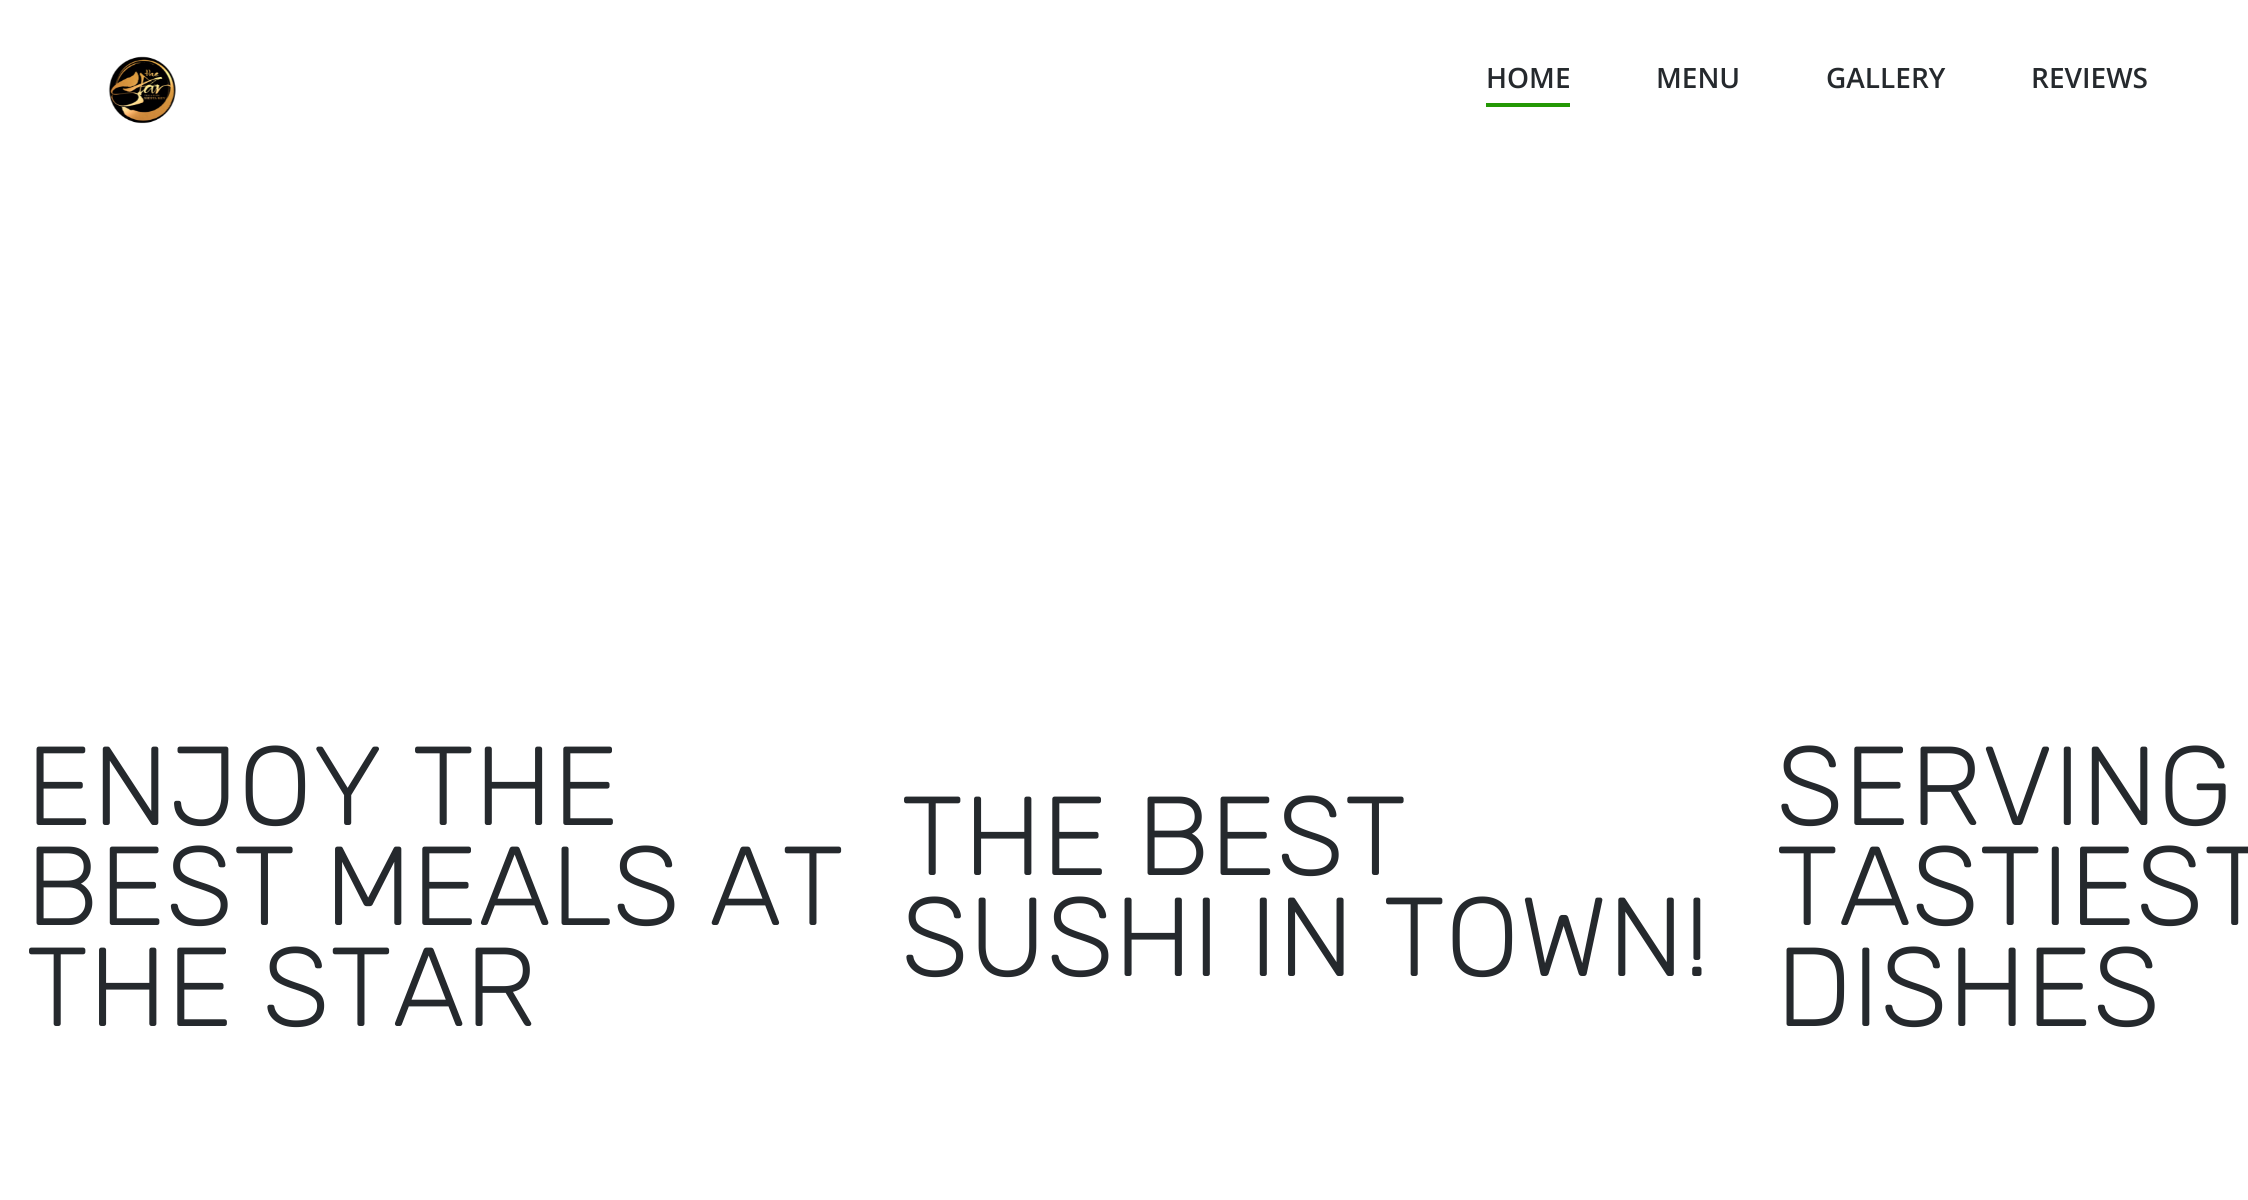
#include <cairo.h>
#include <math.h>
#include <stddef.h>

typedef struct { double x, y; const char *s; } line_t;

static void ink(cairo_t *ctx, unsigned color) {
    cairo_set_source_rgb(ctx, (color >> 16) / 255.0, (color >> 8 & 255) / 255.0, (color & 255) / 255.0);
}

static void paste(cairo_t *ctx, const char *path, double x, double y, double w, double h) {
    cairo_surface_t *image = cairo_image_surface_create_from_png(path);
    cairo_save(ctx);
    cairo_set_source_surface(ctx, image, x, y);
    cairo_rectangle(ctx, x, y, w, h);
    cairo_fill(ctx);
    cairo_restore(ctx);
    cairo_surface_destroy(image);
}

int main(void) {
    cairo_surface_t *surface = cairo_image_surface_create(CAIRO_FORMAT_RGB24, 2248, 1200);
    cairo_t *ctx = cairo_create(surface);
    cairo_font_options_t *options = cairo_font_options_create();
    cairo_font_options_set_hint_metrics(options, CAIRO_HINT_METRICS_OFF);
    cairo_font_options_set_hint_style(options, CAIRO_HINT_STYLE_NONE);
    cairo_set_font_options(ctx, options);
    cairo_set_miter_limit(ctx, 4);
    ink(ctx, 0xFFFFFF);
    cairo_paint(ctx);
    paste(ctx, "media/1.png", 108, 56, 68, 68);
    cairo_select_font_face(ctx, "Open Sans SemiBold", CAIRO_FONT_SLANT_NORMAL, CAIRO_FONT_WEIGHT_NORMAL);
    cairo_set_font_size(ctx, 28);
    ink(ctx, 0x25292D);
    cairo_move_to(ctx, 1486, 88);
    cairo_show_text(ctx, "HOME");
    ink(ctx, 0x249805);
    cairo_rectangle(ctx, 1486, 103, 84, 4);
    cairo_fill(ctx);
    ink(ctx, 0x25292D);
    {
        static const line_t items[] = {
            {1656, 88, "MENU"},
            {1826, 88, "GALLERY"},
            {2031, 88, "REVIEWS"},
        };
        for (size_t i = 0; i < sizeof items / sizeof *items; i++) {
            cairo_move_to(ctx, items[i].x, items[i].y);
            cairo_show_text(ctx, items[i].s);
        }
    }
    cairo_select_font_face(ctx, "Rubik Light", CAIRO_FONT_SLANT_NORMAL, CAIRO_FONT_WEIGHT_NORMAL);
    cairo_set_font_size(ctx, 112);
    {
        static const line_t items[] = {
            {26, 825, "ENJOY THE"},
            {26, 925, "BEST MEALS AT"},
            {26, 1026, "THE STAR"},
            {901, 875, "THE BEST"},
            {901, 976, "SUSHI IN TOWN!"},
            {1776, 825, "SERVING"},
            {1776, 925, "TASTIEST"},
            {1776, 1026, "DISHES"},
        };
        for (size_t i = 0; i < sizeof items / sizeof *items; i++) {
            cairo_move_to(ctx, items[i].x, items[i].y);
            cairo_show_text(ctx, items[i].s);
        }
    }
    cairo_surface_write_to_png(surface, "image.png");
    cairo_font_options_destroy(options);
    cairo_destroy(ctx);
    cairo_surface_destroy(surface);
    return 0;
}
